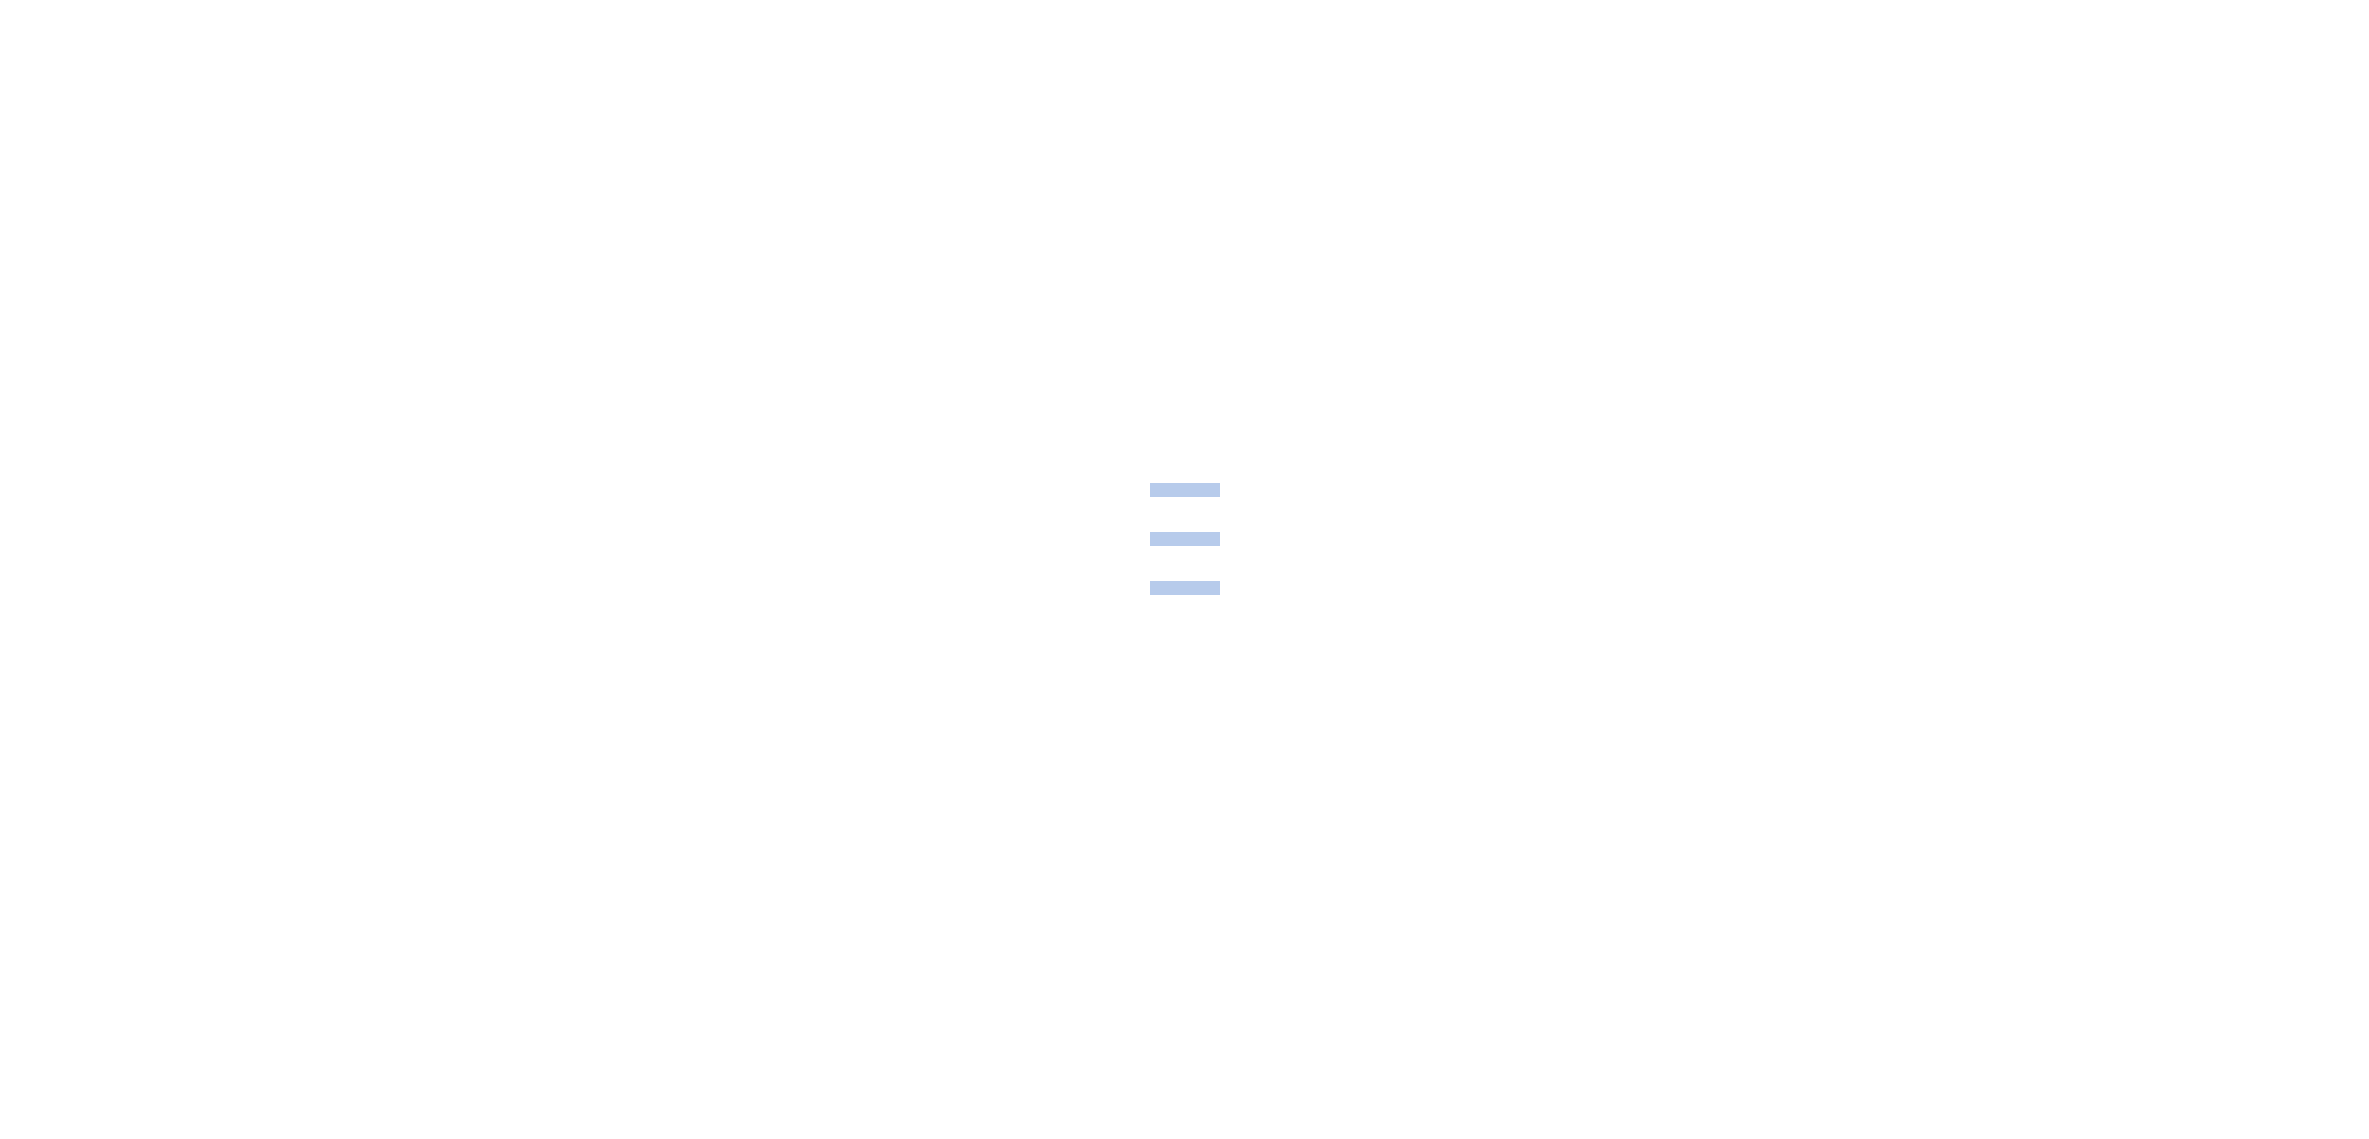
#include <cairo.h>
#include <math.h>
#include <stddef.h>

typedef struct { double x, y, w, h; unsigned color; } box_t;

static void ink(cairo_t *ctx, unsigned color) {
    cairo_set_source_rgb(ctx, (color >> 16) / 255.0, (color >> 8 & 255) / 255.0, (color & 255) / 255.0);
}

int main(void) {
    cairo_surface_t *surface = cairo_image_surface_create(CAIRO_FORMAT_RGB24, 2369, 1139);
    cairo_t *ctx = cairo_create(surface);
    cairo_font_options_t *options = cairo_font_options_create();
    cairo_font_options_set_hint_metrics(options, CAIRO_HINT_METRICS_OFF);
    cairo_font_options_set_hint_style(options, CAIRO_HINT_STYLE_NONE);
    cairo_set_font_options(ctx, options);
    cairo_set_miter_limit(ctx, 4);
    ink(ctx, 0xFFFFFF);
    cairo_paint(ctx);
    {
        static const box_t items[] = {
            {1150, 483, 70, 14, 0xB7CBEB},
            {1150, 532, 70, 14, 0xB7CBEB},
            {1150, 581, 70, 14, 0xB7CBEB},
        };
        for (size_t i = 0; i < sizeof items / sizeof *items; i++) {
            ink(ctx, items[i].color);
            cairo_rectangle(ctx, items[i].x, items[i].y, items[i].w, items[i].h);
            cairo_fill(ctx);
        }
    }
    cairo_surface_write_to_png(surface, "image.png");
    cairo_font_options_destroy(options);
    cairo_destroy(ctx);
    cairo_surface_destroy(surface);
    return 0;
}
